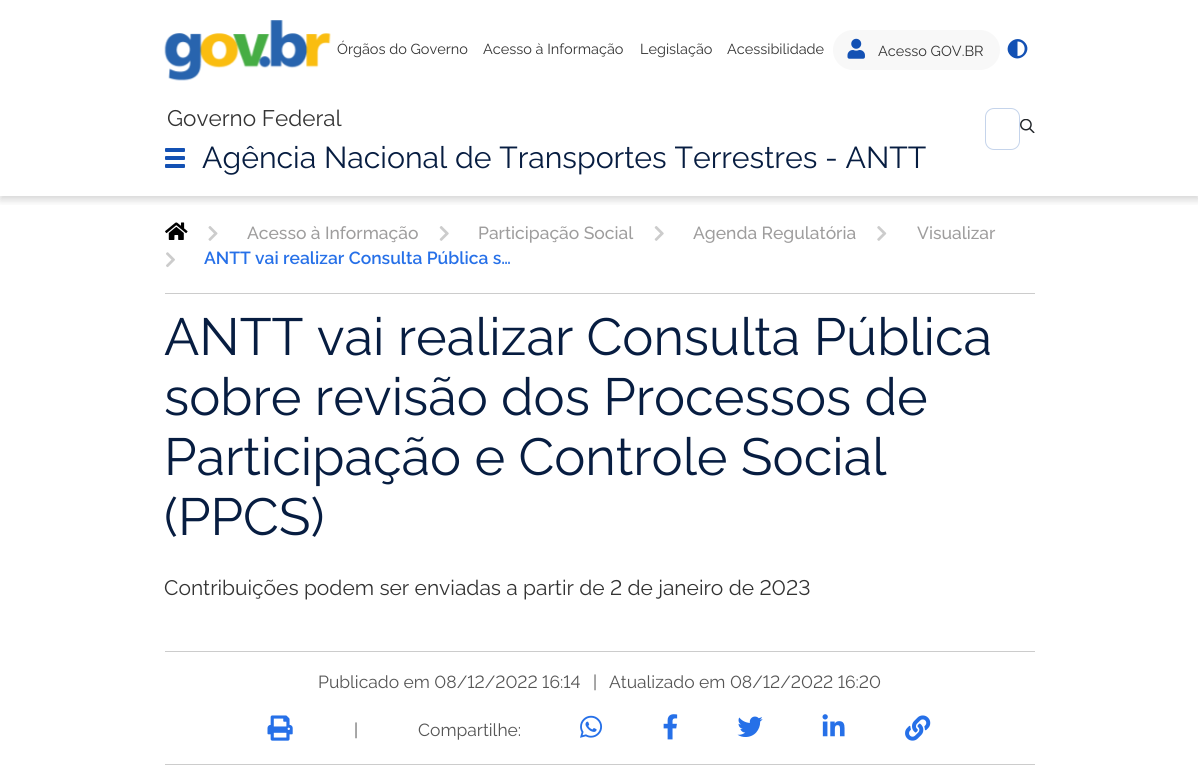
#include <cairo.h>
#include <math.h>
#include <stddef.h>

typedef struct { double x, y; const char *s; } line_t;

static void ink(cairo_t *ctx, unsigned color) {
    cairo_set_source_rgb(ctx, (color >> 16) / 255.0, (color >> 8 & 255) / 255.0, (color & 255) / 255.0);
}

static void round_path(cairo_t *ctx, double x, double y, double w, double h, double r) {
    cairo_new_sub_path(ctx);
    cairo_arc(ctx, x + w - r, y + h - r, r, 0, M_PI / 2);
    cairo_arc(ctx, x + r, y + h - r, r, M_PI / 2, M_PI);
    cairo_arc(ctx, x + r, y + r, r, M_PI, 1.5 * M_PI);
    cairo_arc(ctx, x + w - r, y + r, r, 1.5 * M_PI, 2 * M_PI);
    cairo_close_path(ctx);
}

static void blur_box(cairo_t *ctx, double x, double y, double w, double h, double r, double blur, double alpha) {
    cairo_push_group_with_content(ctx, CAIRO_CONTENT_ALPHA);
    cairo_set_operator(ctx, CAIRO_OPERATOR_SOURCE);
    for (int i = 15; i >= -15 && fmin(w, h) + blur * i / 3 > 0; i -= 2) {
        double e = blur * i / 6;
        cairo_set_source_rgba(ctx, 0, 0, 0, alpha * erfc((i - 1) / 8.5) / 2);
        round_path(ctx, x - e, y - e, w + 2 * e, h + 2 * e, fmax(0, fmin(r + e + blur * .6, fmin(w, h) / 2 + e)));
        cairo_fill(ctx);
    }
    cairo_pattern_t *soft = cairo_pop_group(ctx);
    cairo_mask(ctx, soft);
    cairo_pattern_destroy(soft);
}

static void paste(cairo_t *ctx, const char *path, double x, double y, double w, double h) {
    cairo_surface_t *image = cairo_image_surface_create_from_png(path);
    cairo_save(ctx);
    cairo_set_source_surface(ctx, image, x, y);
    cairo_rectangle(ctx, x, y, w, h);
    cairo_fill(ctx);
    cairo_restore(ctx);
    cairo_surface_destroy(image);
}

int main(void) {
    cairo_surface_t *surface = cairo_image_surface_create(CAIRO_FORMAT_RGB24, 1198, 781);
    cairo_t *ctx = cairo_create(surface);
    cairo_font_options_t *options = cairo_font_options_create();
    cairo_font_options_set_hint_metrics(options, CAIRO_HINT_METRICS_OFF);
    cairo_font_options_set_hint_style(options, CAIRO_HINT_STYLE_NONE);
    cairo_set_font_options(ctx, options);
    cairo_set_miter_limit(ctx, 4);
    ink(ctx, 0xFFFFFF);
    cairo_paint(ctx);
    cairo_save(ctx);
    cairo_rectangle(ctx, 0, 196, 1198, 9);
    cairo_clip(ctx);
    ink(ctx, 0x000000);
    blur_box(ctx, 0, 4, 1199, 196, 0, 4, 0.16);
    cairo_restore(ctx);
    paste(ctx, "media/1.png", 164, 20, 167, 61);
    cairo_select_font_face(ctx, "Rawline", CAIRO_FONT_SLANT_NORMAL, CAIRO_FONT_WEIGHT_NORMAL);
    cairo_set_font_size(ctx, 14.5);
    ink(ctx, 0x333333);
    {
        static const line_t items[] = {
            {337, 54, "Órgãos do Governo"},
            {483, 54, "Acesso à Informação"},
            {640, 54, "Legislação"},
            {727, 54, "Acessibilidade"},
        };
        for (size_t i = 0; i < sizeof items / sizeof *items; i++) {
            cairo_move_to(ctx, items[i].x, items[i].y);
            cairo_show_text(ctx, items[i].s);
        }
    }
    ink(ctx, 0xF8F8F8);
    round_path(ctx, 833, 30, 167, 40, 20);
    cairo_fill(ctx);
    paste(ctx, "media/2.png", 847, 38, 18, 21);
    ink(ctx, 0x333333);
    cairo_move_to(ctx, 878, 56);
    cairo_show_text(ctx, "Acesso GOV.BR");
    ink(ctx, 0x1351B4);
    cairo_new_path(ctx);
    cairo_move_to(ctx, 1010.5, 55.5);
    cairo_curve_to(ctx, 1001.5, 46.5, 1015.5, 33, 1024.5, 42);
    cairo_curve_to(ctx, 1033.5, 51, 1019.5, 64.5, 1010.5, 55.5);
    cairo_close_path(ctx);
    cairo_move_to(ctx, 1017.5, 56);
    cairo_curve_to(ctx, 1027, 56, 1027, 41.5, 1017.5, 41.5);
    cairo_close_path(ctx);
    cairo_fill(ctx);
    cairo_set_font_size(ctx, 22.5);
    ink(ctx, 0x333333);
    cairo_move_to(ctx, 167, 126);
    cairo_show_text(ctx, "Governo Federal");
    ink(ctx, 0x1351B4);
    round_path(ctx, 165, 148, 20, 4, 1);
    cairo_fill(ctx);
    round_path(ctx, 165, 156, 20, 4, 1);
    cairo_fill(ctx);
    round_path(ctx, 165, 164, 20, 4, 1);
    cairo_fill(ctx);
    cairo_set_font_size(ctx, 30.25);
    ink(ctx, 0x071D41);
    cairo_move_to(ctx, 202, 168);
    cairo_show_text(ctx, "Agência Nacional de Transportes Terrestres - ANTT");
    round_path(ctx, 985.5, 108.5, 34, 41, 8.5);
    ink(ctx, 0xC5D4EB);
    cairo_set_line_width(ctx, 1);
    cairo_stroke(ctx);
    paste(ctx, "media/3.png", 1020, 119, 15, 14);
    ink(ctx, 0xCCCCCC);
    cairo_rectangle(ctx, 165, 293, 870, 1);
    cairo_fill(ctx);
    paste(ctx, "media/4.png", 165, 222, 23, 18);
    paste(ctx, "media/5.png", 208, 226, 10, 15);
    cairo_select_font_face(ctx, "Rawline Medium", CAIRO_FONT_SLANT_NORMAL, CAIRO_FONT_WEIGHT_NORMAL);
    cairo_set_font_size(ctx, 17.5);
    ink(ctx, 0x9E9D9D);
    cairo_move_to(ctx, 247, 239);
    cairo_show_text(ctx, "Acesso à Informação");
    paste(ctx, "media/6.png", 439, 226, 10, 15);
    cairo_move_to(ctx, 478, 239);
    cairo_show_text(ctx, "Participação Social");
    paste(ctx, "media/6.png", 654, 226, 10, 15);
    cairo_move_to(ctx, 693, 239);
    cairo_show_text(ctx, "Agenda Regulatória");
    paste(ctx, "media/7.png", 877, 226, 10, 15);
    cairo_move_to(ctx, 917, 239);
    cairo_show_text(ctx, "Visualizar");
    paste(ctx, "media/8.png", 166, 252, 9, 16);
    cairo_select_font_face(ctx, "Rawline SemiBold", CAIRO_FONT_SLANT_NORMAL, CAIRO_FONT_WEIGHT_NORMAL);
    ink(ctx, 0x2670E8);
    cairo_move_to(ctx, 204, 264);
    cairo_show_text(ctx, "ANTT vai realizar Consulta Pública s…");
    cairo_select_font_face(ctx, "Rawline", CAIRO_FONT_SLANT_NORMAL, CAIRO_FONT_WEIGHT_NORMAL);
    cairo_set_font_size(ctx, 52.25);
    ink(ctx, 0x071D41);
    {
        static const line_t items[] = {
            {164, 355, "ANTT vai realizar Consulta Pública"},
            {164, 415, "sobre revisão dos Processos de"},
            {164, 475, "Participação e Controle Social"},
            {164, 535, "(PPCS)"},
        };
        for (size_t i = 0; i < sizeof items / sizeof *items; i++) {
            cairo_move_to(ctx, items[i].x, items[i].y);
            cairo_show_text(ctx, items[i].s);
        }
    }
    cairo_set_font_size(ctx, 21);
    ink(ctx, 0x333333);
    cairo_move_to(ctx, 164, 595);
    cairo_show_text(ctx, "Contribuições podem ser enviadas a partir de 2 de janeiro de 2023");
    ink(ctx, 0xCCCCCC);
    cairo_rectangle(ctx, 165, 651, 870, 1);
    cairo_fill(ctx);
    cairo_rectangle(ctx, 165, 764, 870, 1);
    cairo_fill(ctx);
    cairo_set_font_size(ctx, 17.5);
    ink(ctx, 0x555555);
    {
        static const line_t items[] = {
            {318, 688, "Publicado em 08/12/2022 16:14"},
            {593, 688, "|"},
            {609, 688, "Atualizado em 08/12/2022 16:20"},
        };
        for (size_t i = 0; i < sizeof items / sizeof *items; i++) {
            cairo_move_to(ctx, items[i].x, items[i].y);
            cairo_show_text(ctx, items[i].s);
        }
    }
    paste(ctx, "media/9.png", 267, 715, 26, 26);
    cairo_move_to(ctx, 354, 736);
    cairo_show_text(ctx, "|");
    cairo_move_to(ctx, 418, 736);
    cairo_show_text(ctx, "Compartilhe:");
    paste(ctx, "media/10.png", 580, 715, 23, 23);
    paste(ctx, "media/11.png", 663, 714, 15, 26);
    paste(ctx, "media/12.png", 737, 716, 26, 21);
    paste(ctx, "media/13.png", 822, 714, 23, 23);
    paste(ctx, "media/14.png", 905, 715, 26, 26);
    cairo_surface_write_to_png(surface, "image.png");
    cairo_font_options_destroy(options);
    cairo_destroy(ctx);
    cairo_surface_destroy(surface);
    return 0;
}
